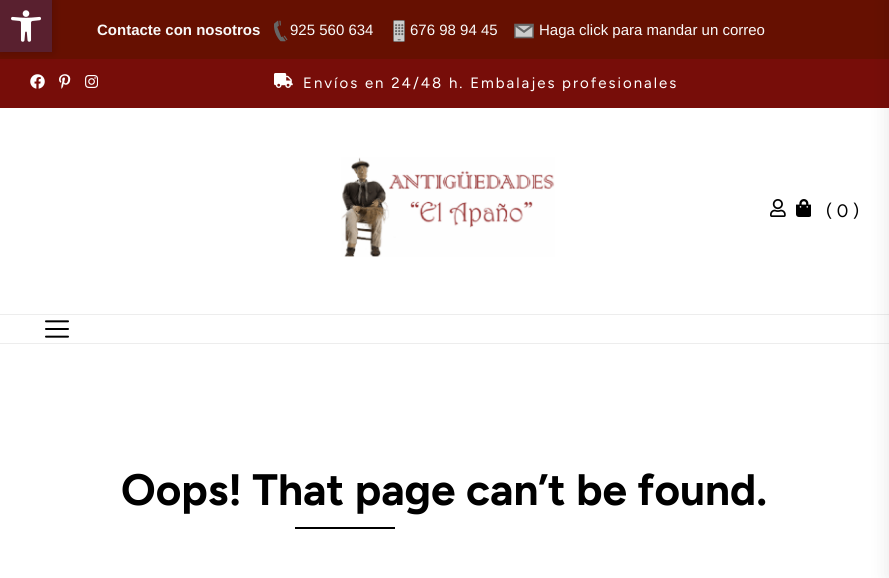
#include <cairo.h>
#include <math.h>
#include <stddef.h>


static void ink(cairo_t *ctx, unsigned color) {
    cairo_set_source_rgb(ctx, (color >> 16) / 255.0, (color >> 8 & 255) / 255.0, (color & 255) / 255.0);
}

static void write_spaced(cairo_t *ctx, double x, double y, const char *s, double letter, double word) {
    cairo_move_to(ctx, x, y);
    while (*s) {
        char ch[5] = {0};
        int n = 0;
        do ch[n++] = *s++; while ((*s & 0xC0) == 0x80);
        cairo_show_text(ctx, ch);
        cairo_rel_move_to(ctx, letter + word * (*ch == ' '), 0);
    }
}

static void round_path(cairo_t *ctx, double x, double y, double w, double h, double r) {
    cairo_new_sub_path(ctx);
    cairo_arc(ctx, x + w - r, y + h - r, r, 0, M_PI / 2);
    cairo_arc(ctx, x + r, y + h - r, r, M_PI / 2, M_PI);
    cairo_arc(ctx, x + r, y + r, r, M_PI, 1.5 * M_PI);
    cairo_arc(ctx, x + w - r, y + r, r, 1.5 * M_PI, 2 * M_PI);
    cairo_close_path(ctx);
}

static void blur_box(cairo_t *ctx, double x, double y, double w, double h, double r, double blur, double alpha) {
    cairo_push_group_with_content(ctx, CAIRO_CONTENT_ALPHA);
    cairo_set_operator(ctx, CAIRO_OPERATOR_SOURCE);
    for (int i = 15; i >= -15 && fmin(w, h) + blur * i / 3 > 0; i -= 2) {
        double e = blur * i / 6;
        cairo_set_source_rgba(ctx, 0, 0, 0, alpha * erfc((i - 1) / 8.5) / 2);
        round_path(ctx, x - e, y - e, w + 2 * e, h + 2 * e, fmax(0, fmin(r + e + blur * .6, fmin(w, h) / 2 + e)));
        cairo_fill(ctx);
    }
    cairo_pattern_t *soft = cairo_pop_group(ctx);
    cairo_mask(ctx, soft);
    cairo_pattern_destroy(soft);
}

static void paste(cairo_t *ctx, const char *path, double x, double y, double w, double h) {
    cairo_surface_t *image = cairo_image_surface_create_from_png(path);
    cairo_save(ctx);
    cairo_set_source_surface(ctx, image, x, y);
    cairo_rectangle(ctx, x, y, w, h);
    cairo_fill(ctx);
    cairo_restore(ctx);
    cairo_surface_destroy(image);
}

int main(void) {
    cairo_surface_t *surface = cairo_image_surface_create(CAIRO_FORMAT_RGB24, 889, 578);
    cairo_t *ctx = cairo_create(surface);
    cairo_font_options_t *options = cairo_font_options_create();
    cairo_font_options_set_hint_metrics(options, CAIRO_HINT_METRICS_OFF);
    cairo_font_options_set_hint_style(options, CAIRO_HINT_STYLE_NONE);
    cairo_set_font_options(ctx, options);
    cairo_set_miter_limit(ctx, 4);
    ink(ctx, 0xFFFFFF);
    cairo_paint(ctx);
    ink(ctx, 0x661001);
    cairo_rectangle(ctx, 0, 0, 889, 59);
    cairo_fill(ctx);
    ink(ctx, 0x770D09);
    cairo_rectangle(ctx, 0, 59, 889, 49);
    cairo_fill(ctx);
    ink(ctx, 0x000000);
    blur_box(ctx, 0, 0, 52, 52, 0, 5, 0.2);
    ink(ctx, 0x59202F);
    cairo_rectangle(ctx, 0, 0, 52, 52);
    cairo_fill(ctx);
    paste(ctx, "media/1.png", 11, 10, 30, 32);
    cairo_select_font_face(ctx, "Liberation Sans", CAIRO_FONT_SLANT_NORMAL, CAIRO_FONT_WEIGHT_BOLD);
    cairo_set_font_size(ctx, 15);
    ink(ctx, 0xF9F9F9);
    cairo_move_to(ctx, 97, 35);
    cairo_show_text(ctx, "Contacte con nosotros");
    paste(ctx, "media/2.png", 274, 20, 14, 22);
    cairo_select_font_face(ctx, "Liberation Sans", CAIRO_FONT_SLANT_NORMAL, CAIRO_FONT_WEIGHT_NORMAL);
    cairo_move_to(ctx, 290, 35);
    cairo_show_text(ctx, "925 560 634");
    paste(ctx, "media/3.png", 393, 20, 12, 22);
    cairo_move_to(ctx, 410, 35);
    cairo_show_text(ctx, "676 98 94 45");
    paste(ctx, "media/4.png", 514, 23, 20, 16);
    cairo_move_to(ctx, 539, 35);
    cairo_show_text(ctx, "Haga click para mandar un correo");
    paste(ctx, "media/5.png", 30, 74, 15, 15);
    paste(ctx, "media/6.png", 59, 74, 12, 15);
    paste(ctx, "media/7.png", 85, 75, 13, 13);
    paste(ctx, "media/8.png", 274, 73, 19, 15);
    cairo_select_font_face(ctx, "Figtree", CAIRO_FONT_SLANT_NORMAL, CAIRO_FONT_WEIGHT_NORMAL);
    ink(ctx, 0xFFFFFF);
    write_spaced(ctx, 303, 88, "Envíos en 24/48 h. Embalajes profesionales", 2, 0);
    paste(ctx, "media/9.png", 341, 157, 214, 100);
    paste(ctx, "media/10.png", 770, 199, 16, 18);
    paste(ctx, "media/11.png", 796, 199, 15, 18);
    cairo_set_font_size(ctx, 18);
    ink(ctx, 0x000000);
    cairo_move_to(ctx, 826, 217);
    cairo_show_text(ctx, "( 0 )");
    ink(ctx, 0xEDEDED);
    cairo_rectangle(ctx, 0, 314, 889, 1);
    cairo_fill(ctx);
    cairo_rectangle(ctx, 0, 343, 889, 1);
    cairo_fill(ctx);
    paste(ctx, "media/12.png", 45, 320, 24, 18);
    cairo_select_font_face(ctx, "Figtree", CAIRO_FONT_SLANT_NORMAL, CAIRO_FONT_WEIGHT_BOLD);
    cairo_set_font_size(ctx, 44);
    ink(ctx, 0x000000);
    cairo_move_to(ctx, 121, 505);
    cairo_show_text(ctx, "Oops! That page can’t be found.");
    cairo_rectangle(ctx, 295, 527, 100, 2);
    cairo_fill(ctx);
    ink(ctx, 0x000000);
    blur_box(ctx, 889, 0, 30, 578, 0, 10, 0.1);
    cairo_surface_write_to_png(surface, "image.png");
    cairo_font_options_destroy(options);
    cairo_destroy(ctx);
    cairo_surface_destroy(surface);
    return 0;
}
